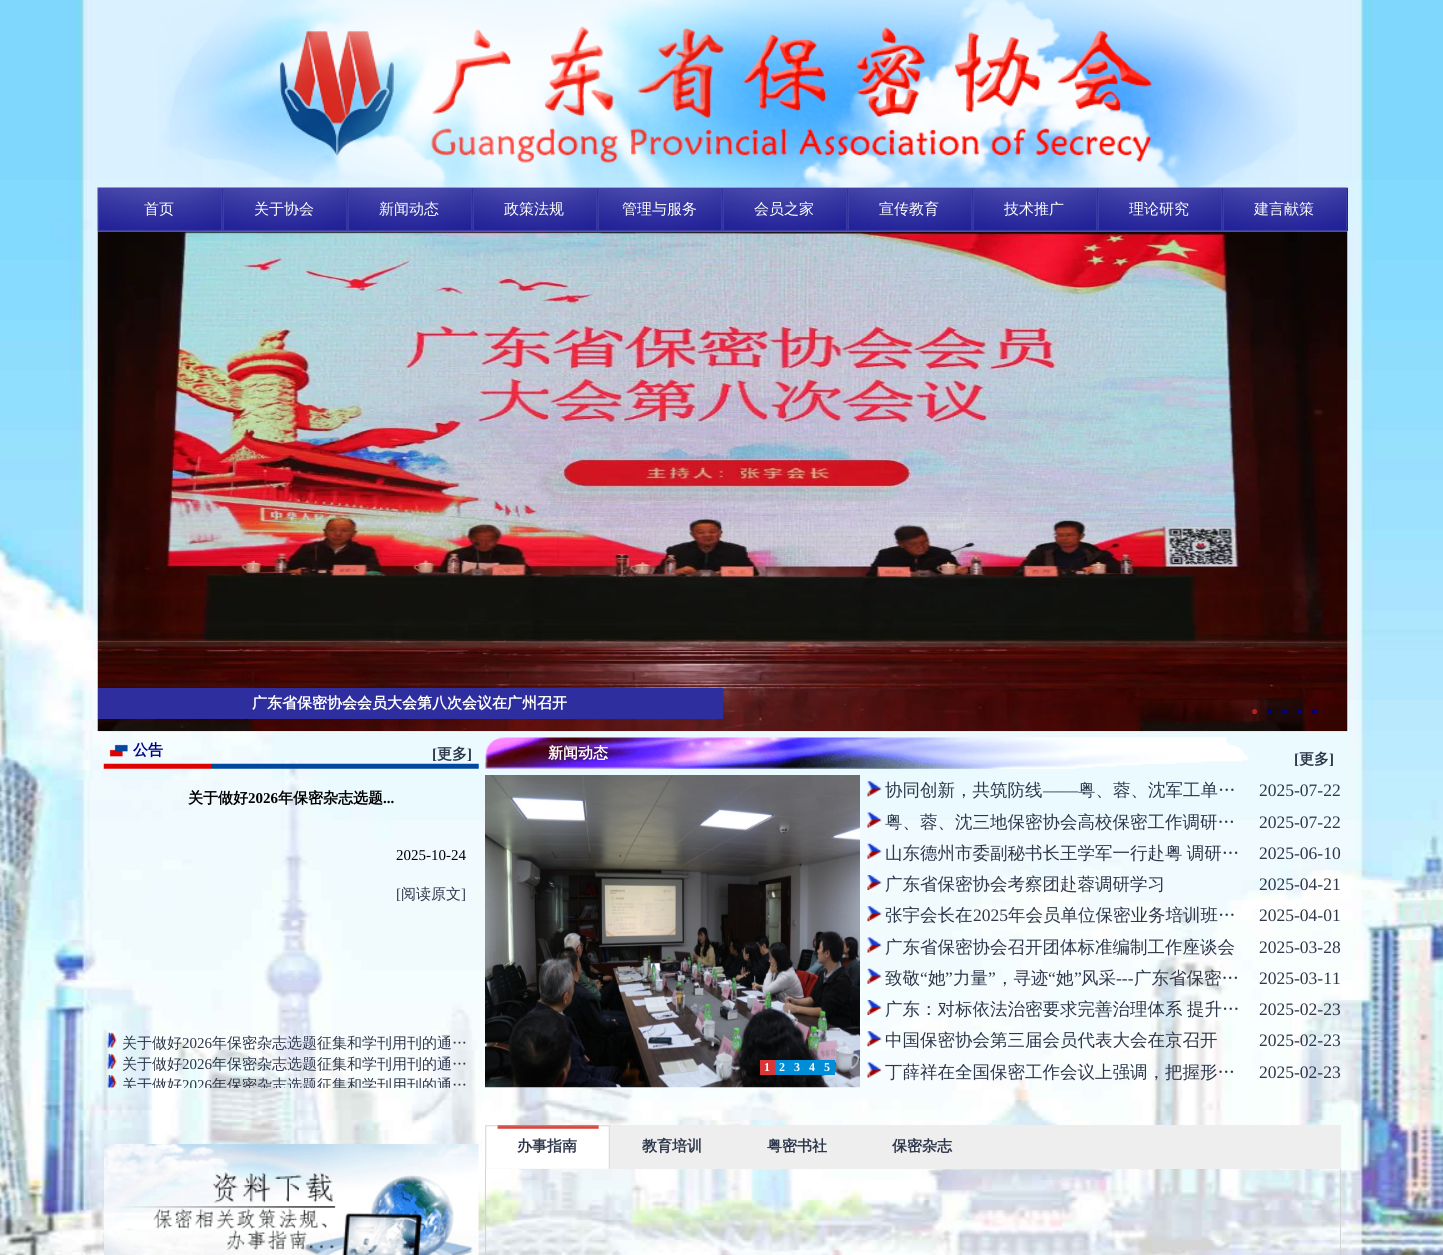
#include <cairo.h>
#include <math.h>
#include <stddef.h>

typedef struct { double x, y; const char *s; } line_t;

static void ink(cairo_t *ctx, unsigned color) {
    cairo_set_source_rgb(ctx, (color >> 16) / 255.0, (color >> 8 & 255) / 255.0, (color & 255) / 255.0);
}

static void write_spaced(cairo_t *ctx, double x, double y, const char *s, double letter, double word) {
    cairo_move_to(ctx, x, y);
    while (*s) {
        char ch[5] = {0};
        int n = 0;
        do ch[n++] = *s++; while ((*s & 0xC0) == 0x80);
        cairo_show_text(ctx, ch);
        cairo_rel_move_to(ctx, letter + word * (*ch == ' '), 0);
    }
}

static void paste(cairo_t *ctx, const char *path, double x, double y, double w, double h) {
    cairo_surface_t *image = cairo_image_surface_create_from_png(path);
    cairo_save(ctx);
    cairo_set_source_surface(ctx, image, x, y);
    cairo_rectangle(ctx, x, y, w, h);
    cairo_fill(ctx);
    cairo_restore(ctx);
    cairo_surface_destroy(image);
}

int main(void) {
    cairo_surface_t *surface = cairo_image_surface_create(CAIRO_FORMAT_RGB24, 1443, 1255);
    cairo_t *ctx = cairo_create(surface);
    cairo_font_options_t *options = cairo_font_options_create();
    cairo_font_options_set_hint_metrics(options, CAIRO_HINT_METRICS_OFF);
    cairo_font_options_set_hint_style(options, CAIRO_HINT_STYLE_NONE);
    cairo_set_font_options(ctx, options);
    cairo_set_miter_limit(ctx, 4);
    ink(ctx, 0xFFFFFF);
    cairo_paint(ctx);
    paste(ctx, "media/1.png", 0, 0, 1443, 1255);
    ink(ctx, 0x00008B);
    cairo_rectangle(ctx, 222, 188, 1126, 43);
    cairo_fill(ctx);
    paste(ctx, "media/3.png", 97, 187, 126, 45);
    paste(ctx, "media/4.png", 222, 187, 126, 45);
    paste(ctx, "media/5.png", 347, 187, 126, 45);
    paste(ctx, "media/6.png", 472, 187, 126, 45);
    paste(ctx, "media/4.png", 597, 187, 126, 45);
    paste(ctx, "media/4.png", 722, 187, 126, 45);
    paste(ctx, "media/4.png", 847, 187, 126, 45);
    paste(ctx, "media/7.png", 972, 187, 126, 45);
    paste(ctx, "media/5.png", 1097, 187, 126, 45);
    paste(ctx, "media/4.png", 1222, 187, 126, 45);
    paste(ctx, "media/2.png", 158, 0, 1140, 188);
    cairo_select_font_face(ctx, "WenQuanYi Zen Hei Medium", CAIRO_FONT_SLANT_NORMAL, CAIRO_FONT_WEIGHT_NORMAL);
    cairo_set_font_size(ctx, 15);
    ink(ctx, 0xFFFFFF);
    {
        static const line_t items[] = {
            {144, 214, "首页"},
            {254, 214, "关于协会"},
            {379, 214, "新闻动态"},
            {504, 214, "政策法规"},
            {622, 214, "管理与服务"},
            {754, 214, "会员之家"},
            {879, 214, "宣传教育"},
            {1004, 214, "技术推广"},
            {1129, 214, "理论研究"},
            {1254, 214, "建言献策"},
        };
        for (size_t i = 0; i < sizeof items / sizeof *items; i++) {
            cairo_move_to(ctx, items[i].x, items[i].y);
            cairo_show_text(ctx, items[i].s);
        }
    }
    paste(ctx, "media/8.png", 97, 231, 1251, 501);
    ink(ctx, 0x2E2E9F);
    cairo_rectangle(ctx, 98, 688, 625, 31);
    cairo_fill(ctx);
    cairo_select_font_face(ctx, "WenQuanYi Zen Hei", CAIRO_FONT_SLANT_NORMAL, CAIRO_FONT_WEIGHT_BOLD);
    ink(ctx, 0xFFFFFF);
    cairo_move_to(ctx, 252, 708);
    cairo_show_text(ctx, "广东省保密协会会员大会第八次会议在广州召开");
    cairo_select_font_face(ctx, "Liberation Serif", CAIRO_FONT_SLANT_NORMAL, CAIRO_FONT_WEIGHT_BOLD);
    cairo_set_font_size(ctx, 12);
    ink(ctx, 0xB22222);
    cairo_move_to(ctx, 1251, 715);
    cairo_show_text(ctx, "●");
    ink(ctx, 0x000080);
    {
        static const line_t items[] = {
            {1266, 715, "●"},
            {1281, 715, "●"},
            {1296, 715, "●"},
            {1311, 715, "●"},
        };
        for (size_t i = 0; i < sizeof items / sizeof *items; i++) {
            cairo_move_to(ctx, items[i].x, items[i].y);
            cairo_show_text(ctx, items[i].s);
        }
    }
    paste(ctx, "media/9.png", 103, 744, 376, 25);
    cairo_select_font_face(ctx, "WenQuanYi Zen Hei", CAIRO_FONT_SLANT_NORMAL, CAIRO_FONT_WEIGHT_BOLD);
    cairo_set_font_size(ctx, 15);
    ink(ctx, 0x00008B);
    cairo_move_to(ctx, 133, 755);
    cairo_show_text(ctx, "公告");
    cairo_select_font_face(ctx, "Liberation Serif", CAIRO_FONT_SLANT_NORMAL, CAIRO_FONT_WEIGHT_BOLD);
    ink(ctx, 0x2D374B);
    cairo_move_to(ctx, 432, 759);
    cairo_show_text(ctx, "[");
    cairo_select_font_face(ctx, "WenQuanYi Zen Hei", CAIRO_FONT_SLANT_NORMAL, CAIRO_FONT_WEIGHT_BOLD);
    cairo_move_to(ctx, 437, 759);
    cairo_show_text(ctx, "更多");
    cairo_select_font_face(ctx, "Liberation Serif", CAIRO_FONT_SLANT_NORMAL, CAIRO_FONT_WEIGHT_BOLD);
    cairo_move_to(ctx, 467, 759);
    cairo_show_text(ctx, "]");
    cairo_select_font_face(ctx, "WenQuanYi Zen Hei", CAIRO_FONT_SLANT_NORMAL, CAIRO_FONT_WEIGHT_BOLD);
    ink(ctx, 0x000000);
    cairo_move_to(ctx, 188, 803);
    cairo_show_text(ctx, "关于做好");
    cairo_select_font_face(ctx, "Liberation Serif", CAIRO_FONT_SLANT_NORMAL, CAIRO_FONT_WEIGHT_BOLD);
    cairo_move_to(ctx, 248, 803);
    cairo_show_text(ctx, "2026");
    cairo_select_font_face(ctx, "WenQuanYi Zen Hei", CAIRO_FONT_SLANT_NORMAL, CAIRO_FONT_WEIGHT_BOLD);
    cairo_move_to(ctx, 278, 803);
    cairo_show_text(ctx, "年保密杂志选题");
    cairo_select_font_face(ctx, "Liberation Serif", CAIRO_FONT_SLANT_NORMAL, CAIRO_FONT_WEIGHT_BOLD);
    cairo_move_to(ctx, 383, 803);
    cairo_show_text(ctx, "...");
    cairo_select_font_face(ctx, "Liberation Serif", CAIRO_FONT_SLANT_NORMAL, CAIRO_FONT_WEIGHT_NORMAL);
    cairo_move_to(ctx, 396, 860);
    cairo_show_text(ctx, "2025-10-24");
    ink(ctx, 0x2D374B);
    cairo_move_to(ctx, 396, 899);
    cairo_show_text(ctx, "[");
    cairo_select_font_face(ctx, "WenQuanYi Zen Hei Medium", CAIRO_FONT_SLANT_NORMAL, CAIRO_FONT_WEIGHT_NORMAL);
    cairo_move_to(ctx, 401, 899);
    cairo_show_text(ctx, "阅读原文");
    cairo_select_font_face(ctx, "Liberation Serif", CAIRO_FONT_SLANT_NORMAL, CAIRO_FONT_WEIGHT_NORMAL);
    cairo_move_to(ctx, 461, 899);
    cairo_show_text(ctx, "]");
    paste(ctx, "media/10.png", 106, 1032, 13, 16);
    cairo_select_font_face(ctx, "WenQuanYi Zen Hei Medium", CAIRO_FONT_SLANT_NORMAL, CAIRO_FONT_WEIGHT_NORMAL);
    cairo_move_to(ctx, 122, 1048);
    cairo_show_text(ctx, "关于做好");
    cairo_select_font_face(ctx, "Liberation Serif", CAIRO_FONT_SLANT_NORMAL, CAIRO_FONT_WEIGHT_NORMAL);
    cairo_move_to(ctx, 182, 1048);
    cairo_show_text(ctx, "2026");
    cairo_select_font_face(ctx, "WenQuanYi Zen Hei Medium", CAIRO_FONT_SLANT_NORMAL, CAIRO_FONT_WEIGHT_NORMAL);
    cairo_move_to(ctx, 212, 1048);
    cairo_show_text(ctx, "年保密杂志选题征集和学刊用刊的通…");
    paste(ctx, "media/11.png", 106, 1053, 13, 16);
    cairo_move_to(ctx, 122, 1069);
    cairo_show_text(ctx, "关于做好");
    cairo_select_font_face(ctx, "Liberation Serif", CAIRO_FONT_SLANT_NORMAL, CAIRO_FONT_WEIGHT_NORMAL);
    cairo_move_to(ctx, 182, 1069);
    cairo_show_text(ctx, "2026");
    cairo_select_font_face(ctx, "WenQuanYi Zen Hei Medium", CAIRO_FONT_SLANT_NORMAL, CAIRO_FONT_WEIGHT_NORMAL);
    cairo_move_to(ctx, 212, 1069);
    cairo_show_text(ctx, "年保密杂志选题征集和学刊用刊的通…");
    paste(ctx, "media/12.png", 106, 1075, 13, 13);
    cairo_save(ctx);
    cairo_rectangle(ctx, 104, 1075, 375, 13);
    cairo_clip(ctx);
    cairo_move_to(ctx, 122, 1090);
    cairo_show_text(ctx, "关于做好");
    cairo_select_font_face(ctx, "Liberation Serif", CAIRO_FONT_SLANT_NORMAL, CAIRO_FONT_WEIGHT_NORMAL);
    cairo_move_to(ctx, 182, 1090);
    cairo_show_text(ctx, "2026");
    cairo_select_font_face(ctx, "WenQuanYi Zen Hei Medium", CAIRO_FONT_SLANT_NORMAL, CAIRO_FONT_WEIGHT_NORMAL);
    cairo_move_to(ctx, 212, 1090);
    cairo_show_text(ctx, "年保密杂志选题征集和学刊用刊的通…");
    cairo_restore(ctx);
    paste(ctx, "media/13.png", 104, 1143, 375, 112);
    paste(ctx, "media/14.png", 485, 737, 764, 32);
    cairo_select_font_face(ctx, "WenQuanYi Zen Hei", CAIRO_FONT_SLANT_NORMAL, CAIRO_FONT_WEIGHT_BOLD);
    ink(ctx, 0xFFFFFF);
    cairo_move_to(ctx, 548, 758);
    cairo_show_text(ctx, "新闻动态");
    cairo_select_font_face(ctx, "Liberation Serif", CAIRO_FONT_SLANT_NORMAL, CAIRO_FONT_WEIGHT_BOLD);
    ink(ctx, 0x2D374B);
    cairo_move_to(ctx, 1294, 764);
    cairo_show_text(ctx, "[");
    cairo_select_font_face(ctx, "WenQuanYi Zen Hei", CAIRO_FONT_SLANT_NORMAL, CAIRO_FONT_WEIGHT_BOLD);
    cairo_move_to(ctx, 1299, 764);
    cairo_show_text(ctx, "更多");
    cairo_select_font_face(ctx, "Liberation Serif", CAIRO_FONT_SLANT_NORMAL, CAIRO_FONT_WEIGHT_BOLD);
    cairo_move_to(ctx, 1329, 764);
    cairo_show_text(ctx, "]");
    paste(ctx, "media/15.png", 485, 775, 375, 313);
    ink(ctx, 0xD73737);
    cairo_rectangle(ctx, 760, 1060, 15, 15);
    cairo_fill(ctx);
    cairo_set_font_size(ctx, 12);
    ink(ctx, 0xFFFFFF);
    cairo_move_to(ctx, 764, 1071);
    cairo_show_text(ctx, "1");
    ink(ctx, 0x008DD8);
    cairo_rectangle(ctx, 775, 1060, 60, 15);
    cairo_fill(ctx);
    ink(ctx, 0xFFFFFF);
    {
        static const line_t items[] = {
            {779, 1071, "2"},
            {794, 1071, "3"},
            {809, 1071, "4"},
            {824, 1071, "5"},
        };
        for (size_t i = 0; i < sizeof items / sizeof *items; i++) {
            cairo_move_to(ctx, items[i].x, items[i].y);
            cairo_show_text(ctx, items[i].s);
        }
    }
    paste(ctx, "media/16.png", 867, 781, 15, 16);
    cairo_select_font_face(ctx, "WenQuanYi Zen Hei Medium", CAIRO_FONT_SLANT_NORMAL, CAIRO_FONT_WEIGHT_NORMAL);
    cairo_set_font_size(ctx, 17.5);
    ink(ctx, 0x2D374B);
    cairo_move_to(ctx, 885, 796);
    cairo_show_text(ctx, "协同创新，共筑防线");
    cairo_select_font_face(ctx, "Liberation Serif", CAIRO_FONT_SLANT_NORMAL, CAIRO_FONT_WEIGHT_NORMAL);
    cairo_move_to(ctx, 1043, 796);
    cairo_show_text(ctx, "——");
    cairo_select_font_face(ctx, "WenQuanYi Zen Hei Medium", CAIRO_FONT_SLANT_NORMAL, CAIRO_FONT_WEIGHT_NORMAL);
    cairo_move_to(ctx, 1078, 796);
    cairo_show_text(ctx, "粤、蓉、沈军工单…");
    cairo_select_font_face(ctx, "Liberation Serif", CAIRO_FONT_SLANT_NORMAL, CAIRO_FONT_WEIGHT_NORMAL);
    cairo_move_to(ctx, 1259, 796);
    cairo_show_text(ctx, "2025-07-22");
    paste(ctx, "media/17.png", 867, 812, 15, 16);
    cairo_select_font_face(ctx, "WenQuanYi Zen Hei Medium", CAIRO_FONT_SLANT_NORMAL, CAIRO_FONT_WEIGHT_NORMAL);
    cairo_move_to(ctx, 885, 828);
    cairo_show_text(ctx, "粤、蓉、沈三地保密协会高校保密工作调研…");
    cairo_select_font_face(ctx, "Liberation Serif", CAIRO_FONT_SLANT_NORMAL, CAIRO_FONT_WEIGHT_NORMAL);
    cairo_move_to(ctx, 1259, 828);
    cairo_show_text(ctx, "2025-07-22");
    paste(ctx, "media/18.png", 867, 843, 15, 16);
    cairo_select_font_face(ctx, "WenQuanYi Zen Hei Medium", CAIRO_FONT_SLANT_NORMAL, CAIRO_FONT_WEIGHT_NORMAL);
    write_spaced(ctx, 885, 859, "山东德州市委副秘书长王学军一行赴粤 调研…", 0, -1);
    cairo_select_font_face(ctx, "Liberation Serif", CAIRO_FONT_SLANT_NORMAL, CAIRO_FONT_WEIGHT_NORMAL);
    cairo_move_to(ctx, 1259, 859);
    cairo_show_text(ctx, "2025-06-10");
    paste(ctx, "media/19.png", 867, 875, 15, 15);
    cairo_select_font_face(ctx, "WenQuanYi Zen Hei Medium", CAIRO_FONT_SLANT_NORMAL, CAIRO_FONT_WEIGHT_NORMAL);
    cairo_move_to(ctx, 885, 890);
    cairo_show_text(ctx, "广东省保密协会考察团赴蓉调研学习");
    cairo_select_font_face(ctx, "Liberation Serif", CAIRO_FONT_SLANT_NORMAL, CAIRO_FONT_WEIGHT_NORMAL);
    cairo_move_to(ctx, 1259, 890);
    cairo_show_text(ctx, "2025-04-21");
    paste(ctx, "media/20.png", 867, 906, 15, 16);
    cairo_select_font_face(ctx, "WenQuanYi Zen Hei Medium", CAIRO_FONT_SLANT_NORMAL, CAIRO_FONT_WEIGHT_NORMAL);
    cairo_move_to(ctx, 885, 921);
    cairo_show_text(ctx, "张宇会长在");
    cairo_select_font_face(ctx, "Liberation Serif", CAIRO_FONT_SLANT_NORMAL, CAIRO_FONT_WEIGHT_NORMAL);
    cairo_move_to(ctx, 973, 921);
    cairo_show_text(ctx, "2025");
    cairo_select_font_face(ctx, "WenQuanYi Zen Hei Medium", CAIRO_FONT_SLANT_NORMAL, CAIRO_FONT_WEIGHT_NORMAL);
    cairo_move_to(ctx, 1008, 921);
    cairo_show_text(ctx, "年会员单位保密业务培训班…");
    cairo_select_font_face(ctx, "Liberation Serif", CAIRO_FONT_SLANT_NORMAL, CAIRO_FONT_WEIGHT_NORMAL);
    cairo_move_to(ctx, 1259, 921);
    cairo_show_text(ctx, "2025-04-01");
    paste(ctx, "media/21.png", 867, 937, 15, 16);
    cairo_select_font_face(ctx, "WenQuanYi Zen Hei Medium", CAIRO_FONT_SLANT_NORMAL, CAIRO_FONT_WEIGHT_NORMAL);
    cairo_move_to(ctx, 885, 953);
    cairo_show_text(ctx, "广东省保密协会召开团体标准编制工作座谈会");
    cairo_select_font_face(ctx, "Liberation Serif", CAIRO_FONT_SLANT_NORMAL, CAIRO_FONT_WEIGHT_NORMAL);
    cairo_move_to(ctx, 1259, 953);
    cairo_show_text(ctx, "2025-03-28");
    paste(ctx, "media/22.png", 867, 968, 15, 16);
    cairo_select_font_face(ctx, "WenQuanYi Zen Hei Medium", CAIRO_FONT_SLANT_NORMAL, CAIRO_FONT_WEIGHT_NORMAL);
    cairo_move_to(ctx, 885, 984);
    cairo_show_text(ctx, "致敬");
    cairo_select_font_face(ctx, "Liberation Serif", CAIRO_FONT_SLANT_NORMAL, CAIRO_FONT_WEIGHT_NORMAL);
    cairo_move_to(ctx, 920, 984);
    cairo_show_text(ctx, "“");
    cairo_select_font_face(ctx, "WenQuanYi Zen Hei Medium", CAIRO_FONT_SLANT_NORMAL, CAIRO_FONT_WEIGHT_NORMAL);
    cairo_move_to(ctx, 928, 984);
    cairo_show_text(ctx, "她");
    cairo_select_font_face(ctx, "Liberation Serif", CAIRO_FONT_SLANT_NORMAL, CAIRO_FONT_WEIGHT_NORMAL);
    cairo_move_to(ctx, 945, 984);
    cairo_show_text(ctx, "”");
    cairo_select_font_face(ctx, "WenQuanYi Zen Hei Medium", CAIRO_FONT_SLANT_NORMAL, CAIRO_FONT_WEIGHT_NORMAL);
    cairo_move_to(ctx, 953, 984);
    cairo_show_text(ctx, "力量");
    cairo_select_font_face(ctx, "Liberation Serif", CAIRO_FONT_SLANT_NORMAL, CAIRO_FONT_WEIGHT_NORMAL);
    cairo_move_to(ctx, 988, 984);
    cairo_show_text(ctx, "”");
    cairo_select_font_face(ctx, "WenQuanYi Zen Hei Medium", CAIRO_FONT_SLANT_NORMAL, CAIRO_FONT_WEIGHT_NORMAL);
    cairo_move_to(ctx, 996, 984);
    cairo_show_text(ctx, "，寻迹");
    cairo_select_font_face(ctx, "Liberation Serif", CAIRO_FONT_SLANT_NORMAL, CAIRO_FONT_WEIGHT_NORMAL);
    cairo_move_to(ctx, 1048, 984);
    cairo_show_text(ctx, "“");
    cairo_select_font_face(ctx, "WenQuanYi Zen Hei Medium", CAIRO_FONT_SLANT_NORMAL, CAIRO_FONT_WEIGHT_NORMAL);
    cairo_move_to(ctx, 1056, 984);
    cairo_show_text(ctx, "她");
    cairo_select_font_face(ctx, "Liberation Serif", CAIRO_FONT_SLANT_NORMAL, CAIRO_FONT_WEIGHT_NORMAL);
    cairo_move_to(ctx, 1074, 984);
    cairo_show_text(ctx, "”");
    cairo_select_font_face(ctx, "WenQuanYi Zen Hei Medium", CAIRO_FONT_SLANT_NORMAL, CAIRO_FONT_WEIGHT_NORMAL);
    cairo_move_to(ctx, 1081, 984);
    cairo_show_text(ctx, "风采");
    cairo_move_to(ctx, 1134, 984);
    cairo_show_text(ctx, "广东省保密…");
    cairo_select_font_face(ctx, "Liberation Serif", CAIRO_FONT_SLANT_NORMAL, CAIRO_FONT_WEIGHT_NORMAL);
    cairo_move_to(ctx, 1116, 984);
    cairo_show_text(ctx, "---");
    cairo_move_to(ctx, 1259, 984);
    cairo_show_text(ctx, "2025-03-11");
    paste(ctx, "media/23.png", 867, 1000, 15, 15);
    cairo_select_font_face(ctx, "WenQuanYi Zen Hei Medium", CAIRO_FONT_SLANT_NORMAL, CAIRO_FONT_WEIGHT_NORMAL);
    cairo_move_to(ctx, 885, 1015);
    cairo_show_text(ctx, "广东：对标依法治密要求完善治理体系");
    cairo_move_to(ctx, 1187, 1015);
    cairo_show_text(ctx, "提升…");
    cairo_select_font_face(ctx, "Liberation Serif", CAIRO_FONT_SLANT_NORMAL, CAIRO_FONT_WEIGHT_NORMAL);
    cairo_move_to(ctx, 1259, 1015);
    cairo_show_text(ctx, "2025-02-23");
    paste(ctx, "media/24.png", 867, 1031, 15, 16);
    cairo_select_font_face(ctx, "WenQuanYi Zen Hei Medium", CAIRO_FONT_SLANT_NORMAL, CAIRO_FONT_WEIGHT_NORMAL);
    cairo_move_to(ctx, 885, 1046);
    cairo_show_text(ctx, "中国保密协会第三届会员代表大会在京召开");
    cairo_select_font_face(ctx, "Liberation Serif", CAIRO_FONT_SLANT_NORMAL, CAIRO_FONT_WEIGHT_NORMAL);
    cairo_move_to(ctx, 1259, 1046);
    cairo_show_text(ctx, "2025-02-23");
    paste(ctx, "media/25.png", 867, 1062, 15, 16);
    cairo_select_font_face(ctx, "WenQuanYi Zen Hei Medium", CAIRO_FONT_SLANT_NORMAL, CAIRO_FONT_WEIGHT_NORMAL);
    cairo_move_to(ctx, 885, 1078);
    cairo_show_text(ctx, "丁薛祥在全国保密工作会议上强调，把握形…");
    cairo_select_font_face(ctx, "Liberation Serif", CAIRO_FONT_SLANT_NORMAL, CAIRO_FONT_WEIGHT_NORMAL);
    cairo_move_to(ctx, 1259, 1078);
    cairo_show_text(ctx, "2025-02-23");
    ink(ctx, 0xEEEEEE);
    cairo_rectangle(ctx, 485, 1125, 856, 44);
    cairo_fill(ctx);
    paste(ctx, "media/26.png", 485, 1125, 125, 44);
    cairo_select_font_face(ctx, "WenQuanYi Zen Hei", CAIRO_FONT_SLANT_NORMAL, CAIRO_FONT_WEIGHT_BOLD);
    cairo_set_font_size(ctx, 15);
    ink(ctx, 0x2D374B);
    {
        static const line_t items[] = {
            {517, 1151, "办事指南"},
            {642, 1151, "教育培训"},
            {767, 1151, "粤密书社"},
            {892, 1151, "保密杂志"},
        };
        for (size_t i = 0; i < sizeof items / sizeof *items; i++) {
            cairo_move_to(ctx, items[i].x, items[i].y);
            cairo_show_text(ctx, items[i].s);
        }
    }
    ink(ctx, 0xD3D3D3);
    cairo_rectangle(ctx, 1340, 1169, 1, 86);
    cairo_fill(ctx);
    cairo_rectangle(ctx, 485, 1169, 1, 86);
    cairo_fill(ctx);
    cairo_surface_write_to_png(surface, "image.png");
    cairo_font_options_destroy(options);
    cairo_destroy(ctx);
    cairo_surface_destroy(surface);
    return 0;
}
